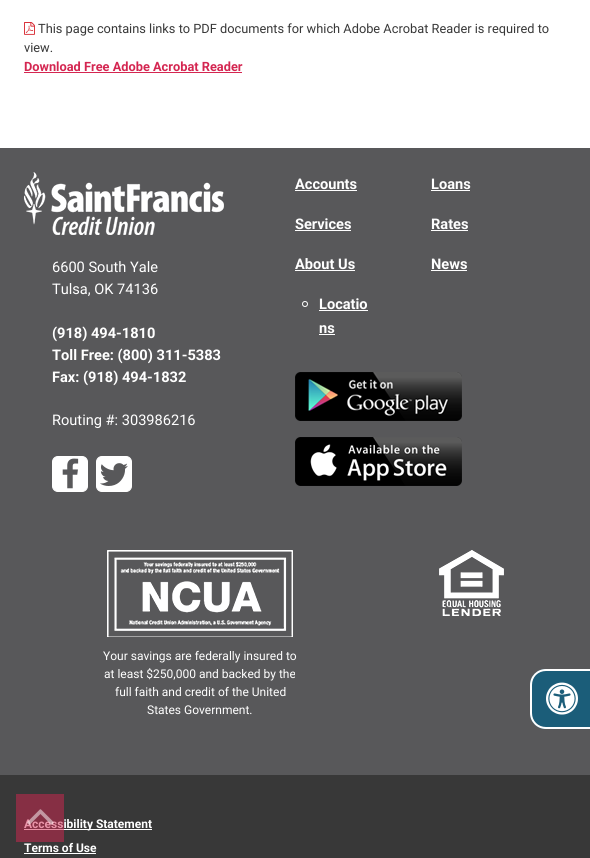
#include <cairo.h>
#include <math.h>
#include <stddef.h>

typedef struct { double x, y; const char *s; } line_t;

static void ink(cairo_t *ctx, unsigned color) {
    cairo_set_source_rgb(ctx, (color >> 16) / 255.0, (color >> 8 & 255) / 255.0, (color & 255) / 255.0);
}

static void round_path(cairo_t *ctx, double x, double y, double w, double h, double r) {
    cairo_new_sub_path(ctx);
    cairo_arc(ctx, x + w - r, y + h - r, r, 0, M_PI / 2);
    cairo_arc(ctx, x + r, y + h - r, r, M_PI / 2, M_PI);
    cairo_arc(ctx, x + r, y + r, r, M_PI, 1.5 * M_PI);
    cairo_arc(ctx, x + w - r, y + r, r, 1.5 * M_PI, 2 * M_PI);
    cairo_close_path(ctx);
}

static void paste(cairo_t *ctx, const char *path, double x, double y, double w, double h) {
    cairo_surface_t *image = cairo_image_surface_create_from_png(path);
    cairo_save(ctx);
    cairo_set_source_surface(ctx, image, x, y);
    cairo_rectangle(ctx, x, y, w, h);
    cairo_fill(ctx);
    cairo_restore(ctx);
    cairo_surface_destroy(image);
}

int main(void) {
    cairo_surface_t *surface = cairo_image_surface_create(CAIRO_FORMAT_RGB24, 590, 858);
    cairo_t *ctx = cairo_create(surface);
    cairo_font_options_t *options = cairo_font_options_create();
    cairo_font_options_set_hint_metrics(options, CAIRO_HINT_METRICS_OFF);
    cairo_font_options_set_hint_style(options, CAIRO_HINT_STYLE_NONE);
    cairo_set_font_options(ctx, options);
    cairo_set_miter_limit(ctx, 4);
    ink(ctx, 0xFFFFFF);
    cairo_paint(ctx);
    paste(ctx, "media/1.png", 24, 22, 11, 13);
    cairo_select_font_face(ctx, "Roboto", CAIRO_FONT_SLANT_NORMAL, CAIRO_FONT_WEIGHT_NORMAL);
    cairo_set_font_size(ctx, 12.8);
    ink(ctx, 0x383838);
    cairo_move_to(ctx, 38, 33);
    cairo_show_text(ctx, "This page contains links to PDF documents for which Adobe Acrobat Reader is required to");
    cairo_move_to(ctx, 24, 52);
    cairo_show_text(ctx, "view.");
    cairo_select_font_face(ctx, "Roboto", CAIRO_FONT_SLANT_NORMAL, CAIRO_FONT_WEIGHT_BOLD);
    ink(ctx, 0xD42651);
    cairo_move_to(ctx, 24, 71);
    cairo_show_text(ctx, "Download Free Adobe Acrobat Reader");
    cairo_rectangle(ctx, 24, 72, 218, 1);
    cairo_fill(ctx);
    ink(ctx, 0x58585A);
    cairo_rectangle(ctx, 0, 148, 590, 627);
    cairo_fill(ctx);
    paste(ctx, "media/2.png", 24, 172, 200, 63);
    cairo_select_font_face(ctx, "Roboto", CAIRO_FONT_SLANT_NORMAL, CAIRO_FONT_WEIGHT_NORMAL);
    cairo_set_font_size(ctx, 14.6);
    ink(ctx, 0xFFFFFF);
    cairo_move_to(ctx, 52, 272);
    cairo_show_text(ctx, "6600 South Yale");
    cairo_move_to(ctx, 52, 294);
    cairo_show_text(ctx, "Tulsa, OK 74136");
    cairo_select_font_face(ctx, "Roboto", CAIRO_FONT_SLANT_NORMAL, CAIRO_FONT_WEIGHT_BOLD);
    {
        static const line_t items[] = {
            {52, 338, "(918) 494-1810"},
            {52, 360, "Toll Free: (800) 311-5383"},
            {52, 382, "Fax: (918) 494-1832"},
        };
        for (size_t i = 0; i < sizeof items / sizeof *items; i++) {
            cairo_move_to(ctx, items[i].x, items[i].y);
            cairo_show_text(ctx, items[i].s);
        }
    }
    cairo_select_font_face(ctx, "Roboto", CAIRO_FONT_SLANT_NORMAL, CAIRO_FONT_WEIGHT_NORMAL);
    cairo_move_to(ctx, 52, 425);
    cairo_show_text(ctx, "Routing #: 303986216");
    round_path(ctx, 52.5, 456.5, 35, 35, 5.5);
    cairo_fill_preserve(ctx);
    cairo_set_line_width(ctx, 1);
    cairo_stroke(ctx);
    paste(ctx, "media/3.png", 62, 458, 17, 31);
    round_path(ctx, 96.5, 456.5, 35, 35, 5.5);
    cairo_fill_preserve(ctx);
    cairo_stroke(ctx);
    paste(ctx, "media/4.png", 100, 463, 28, 23);
    cairo_select_font_face(ctx, "Roboto", CAIRO_FONT_SLANT_NORMAL, CAIRO_FONT_WEIGHT_BOLD);
    cairo_move_to(ctx, 295, 189);
    cairo_show_text(ctx, "Accounts");
    cairo_rectangle(ctx, 295, 190, 62, 1);
    cairo_fill(ctx);
    cairo_move_to(ctx, 431, 189);
    cairo_show_text(ctx, "Loans");
    cairo_rectangle(ctx, 431, 190, 39, 1);
    cairo_fill(ctx);
    cairo_move_to(ctx, 295, 229);
    cairo_show_text(ctx, "Services");
    cairo_rectangle(ctx, 295, 230, 56, 1);
    cairo_fill(ctx);
    cairo_move_to(ctx, 431, 229);
    cairo_show_text(ctx, "Rates");
    cairo_rectangle(ctx, 431, 230, 37, 1);
    cairo_fill(ctx);
    cairo_move_to(ctx, 295, 269);
    cairo_show_text(ctx, "About Us");
    cairo_rectangle(ctx, 295, 270, 60, 1);
    cairo_fill(ctx);
    cairo_arc(ctx, 305, 304, 2.5, 0, 2 * M_PI);
    cairo_stroke(ctx);
    cairo_move_to(ctx, 319, 309);
    cairo_show_text(ctx, "Locatio");
    cairo_rectangle(ctx, 319, 310, 49, 1);
    cairo_fill(ctx);
    cairo_move_to(ctx, 319, 333);
    cairo_show_text(ctx, "ns");
    cairo_rectangle(ctx, 319, 334, 16, 1);
    cairo_fill(ctx);
    cairo_move_to(ctx, 431, 269);
    cairo_show_text(ctx, "News");
    cairo_rectangle(ctx, 431, 270, 36, 1);
    cairo_fill(ctx);
    paste(ctx, "media/5.png", 295, 372, 167, 49);
    paste(ctx, "media/6.png", 295, 437, 167, 49);
    paste(ctx, "media/7.png", 439, 550, 65, 66);
    paste(ctx, "media/8.png", 107, 550, 186, 87);
    cairo_select_font_face(ctx, "Roboto", CAIRO_FONT_SLANT_NORMAL, CAIRO_FONT_WEIGHT_NORMAL);
    cairo_set_font_size(ctx, 12);
    {
        static const line_t items[] = {
            {103, 660, "Your savings are federally insured to"},
            {104, 678, "at least $250,000 and backed by the"},
            {115, 696, "full faith and credit of the United"},
            {147, 714, "States Government."},
        };
        for (size_t i = 0; i < sizeof items / sizeof *items; i++) {
            cairo_move_to(ctx, items[i].x, items[i].y);
            cairo_show_text(ctx, items[i].s);
        }
    }
    ink(ctx, 0x383838);
    cairo_rectangle(ctx, 0, 775, 590, 83);
    cairo_fill(ctx);
    ink(ctx, 0xFFFFFF);
    cairo_rectangle(ctx, 24, 829, 128, 1);
    cairo_fill(ctx);
    cairo_select_font_face(ctx, "Roboto", CAIRO_FONT_SLANT_NORMAL, CAIRO_FONT_WEIGHT_BOLD);
    cairo_move_to(ctx, 24, 828);
    cairo_show_text(ctx, "Accessibility Statement");
    cairo_move_to(ctx, 24, 852);
    cairo_show_text(ctx, "Terms of Use");
    cairo_rectangle(ctx, 24, 853, 72, 1);
    cairo_fill(ctx);
    ink(ctx, 0x1B5D79);
    cairo_new_path(ctx);
    cairo_move_to(ctx, 546, 669);
    cairo_line_to(ctx, 590, 669);
    cairo_line_to(ctx, 590, 729);
    cairo_line_to(ctx, 546, 729);
    cairo_curve_to(ctx, 537, 729, 530, 722, 530, 713);
    cairo_line_to(ctx, 530, 685);
    cairo_curve_to(ctx, 530, 676, 537, 669, 546, 669);
    cairo_close_path(ctx);
    cairo_fill(ctx);
    ink(ctx, 0xFFFFFF);
    cairo_set_fill_rule(ctx, CAIRO_FILL_RULE_EVEN_ODD);
    cairo_new_path(ctx);
    cairo_move_to(ctx, 546, 669);
    cairo_line_to(ctx, 590, 669);
    cairo_line_to(ctx, 590, 729);
    cairo_line_to(ctx, 546, 729);
    cairo_curve_to(ctx, 537, 729, 530, 722, 530, 713);
    cairo_line_to(ctx, 530, 685);
    cairo_curve_to(ctx, 530, 676, 537, 669, 546, 669);
    cairo_close_path(ctx);
    cairo_move_to(ctx, 546, 671);
    cairo_line_to(ctx, 590, 671);
    cairo_line_to(ctx, 590, 727);
    cairo_line_to(ctx, 546, 727);
    cairo_curve_to(ctx, 538, 727, 532, 721, 532, 713);
    cairo_line_to(ctx, 532, 685);
    cairo_curve_to(ctx, 532, 677, 538, 671, 546, 671);
    cairo_close_path(ctx);
    cairo_fill(ctx);
    paste(ctx, "media/9.png", 546, 682, 32, 33);
    cairo_set_source_rgba(ctx, 0.831, 0.149, 0.318, 0.5);
    cairo_rectangle(ctx, 16, 794, 48, 48);
    cairo_fill(ctx);
    paste(ctx, "media/10.png", 27, 809, 27, 16);
    cairo_surface_write_to_png(surface, "image.png");
    cairo_font_options_destroy(options);
    cairo_destroy(ctx);
    cairo_surface_destroy(surface);
    return 0;
}
